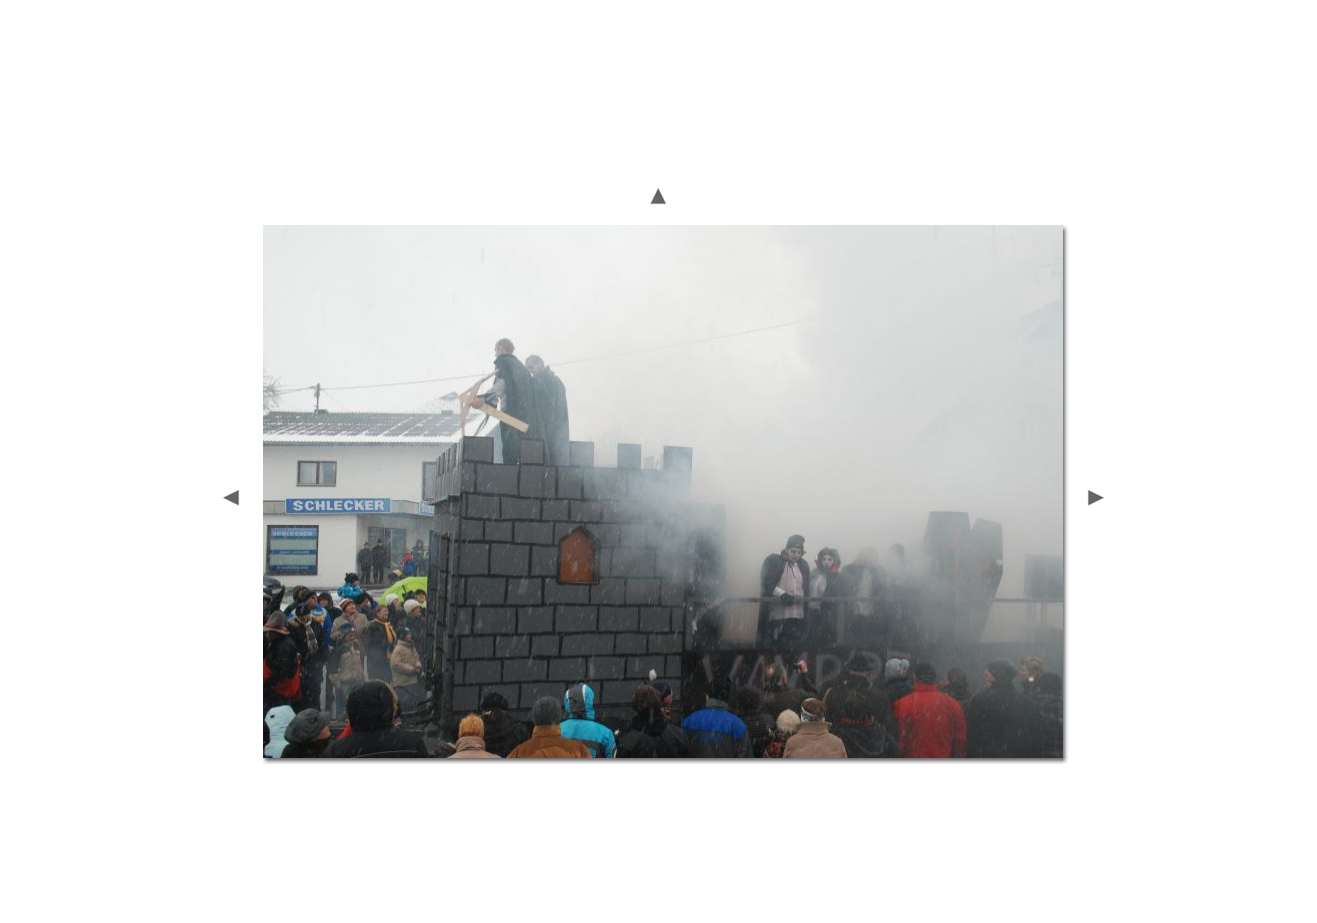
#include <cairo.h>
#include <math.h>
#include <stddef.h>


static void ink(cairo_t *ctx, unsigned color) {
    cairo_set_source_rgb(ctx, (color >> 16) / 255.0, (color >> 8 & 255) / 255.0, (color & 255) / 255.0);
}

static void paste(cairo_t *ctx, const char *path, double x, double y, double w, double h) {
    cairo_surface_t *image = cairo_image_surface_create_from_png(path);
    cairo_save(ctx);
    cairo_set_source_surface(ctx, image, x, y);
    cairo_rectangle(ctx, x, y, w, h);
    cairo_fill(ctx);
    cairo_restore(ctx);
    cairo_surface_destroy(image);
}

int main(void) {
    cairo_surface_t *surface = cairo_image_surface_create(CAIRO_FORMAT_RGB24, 1317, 923);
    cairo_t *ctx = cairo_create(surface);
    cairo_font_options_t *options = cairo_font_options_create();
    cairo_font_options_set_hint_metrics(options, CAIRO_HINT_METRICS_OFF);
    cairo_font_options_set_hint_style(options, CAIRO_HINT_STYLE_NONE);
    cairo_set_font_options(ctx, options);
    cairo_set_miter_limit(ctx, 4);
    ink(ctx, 0xFFFFFF);
    cairo_paint(ctx);
    paste(ctx, "media/1.png", 650, 187, 16, 18);
    paste(ctx, "media/2.png", 222, 490, 18, 16);
    paste(ctx, "media/3.png", 263, 225, 800, 533);
    paste(ctx, "media/4.png", 1063, 232, 6, 526);
    paste(ctx, "media/5.png", 1063, 225, 6, 7);
    paste(ctx, "media/6.png", 269, 758, 794, 7);
    paste(ctx, "media/7.png", 263, 758, 6, 7);
    paste(ctx, "media/8.png", 1063, 758, 6, 7);
    paste(ctx, "media/9.png", 1087, 490, 18, 16);
    cairo_surface_write_to_png(surface, "image.png");
    cairo_font_options_destroy(options);
    cairo_destroy(ctx);
    cairo_surface_destroy(surface);
    return 0;
}
